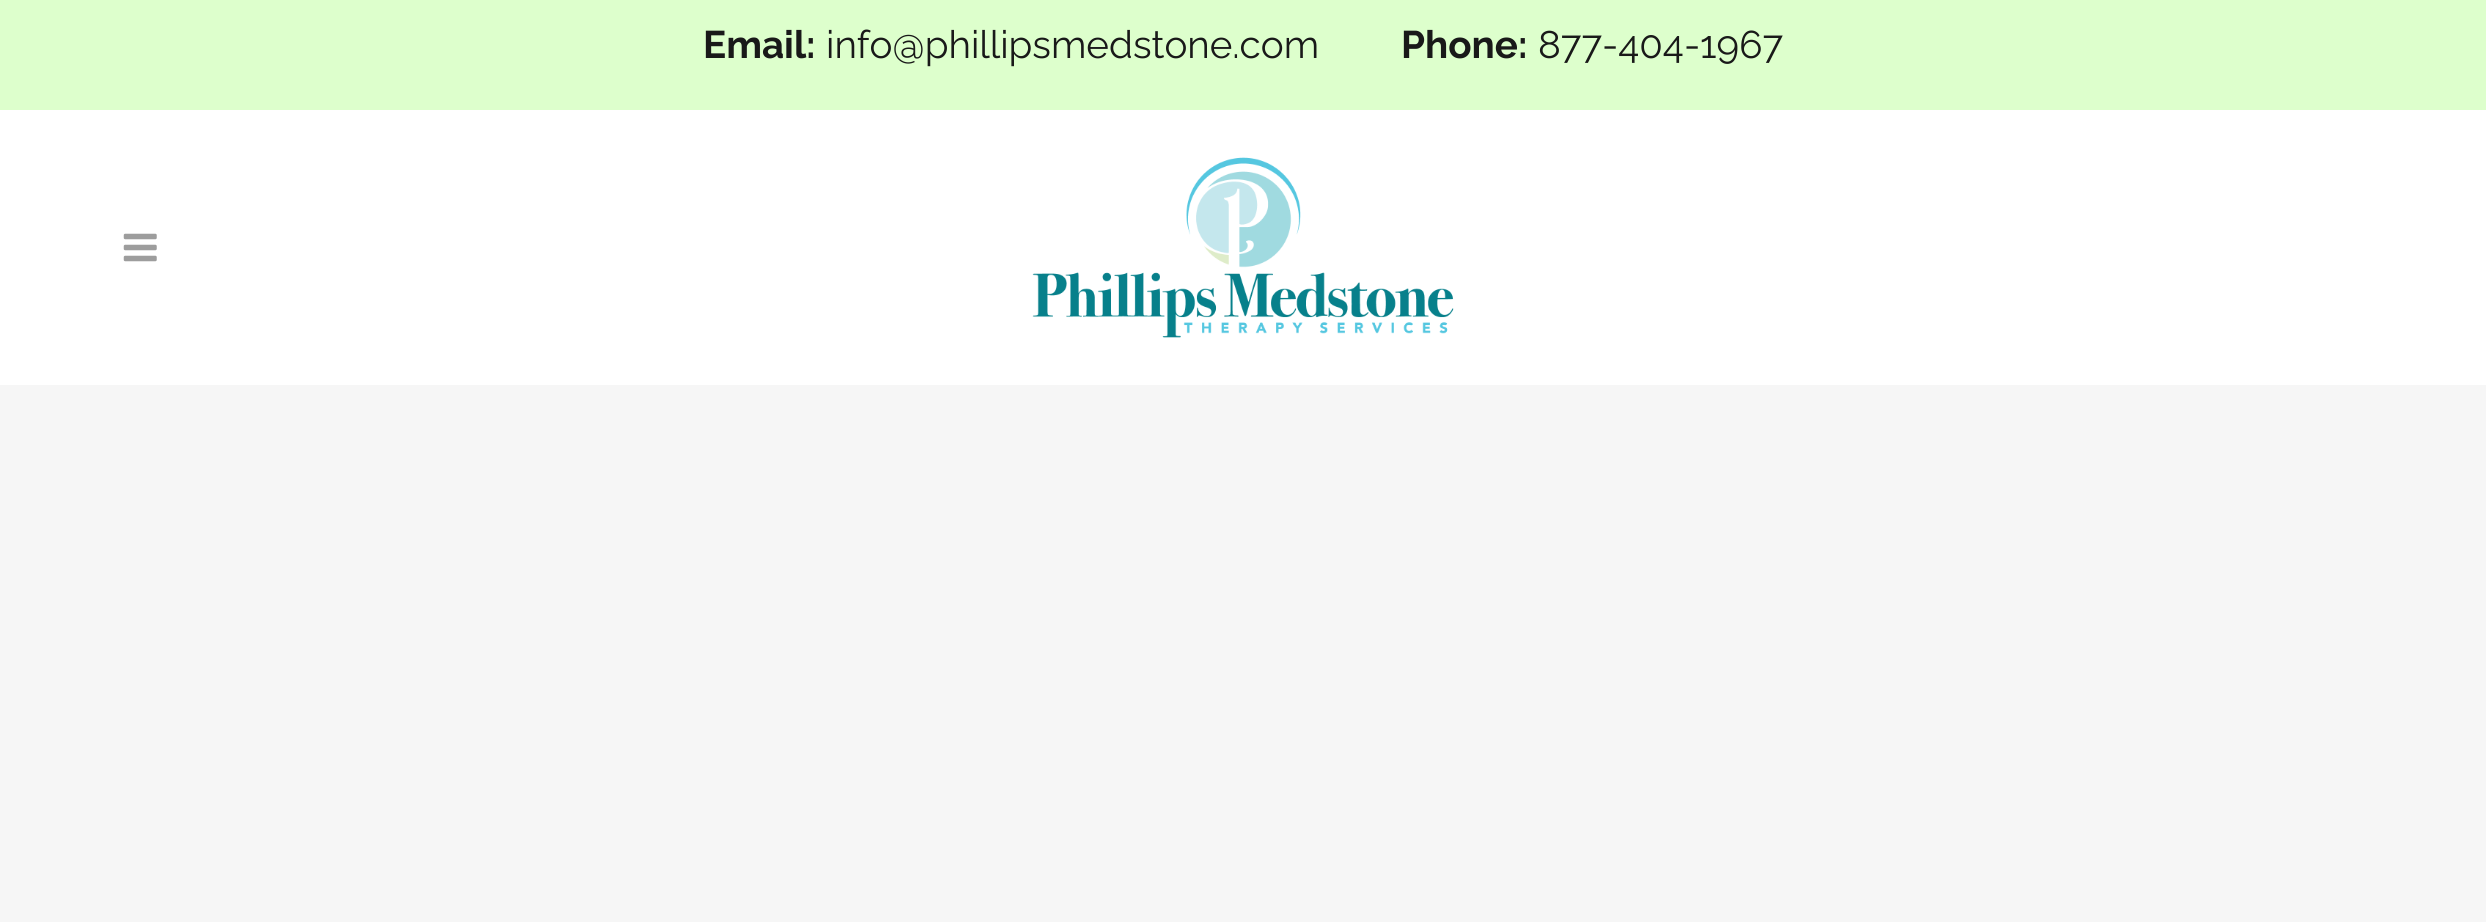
#include <cairo.h>
#include <math.h>
#include <stddef.h>


static void ink(cairo_t *ctx, unsigned color) {
    cairo_set_source_rgb(ctx, (color >> 16) / 255.0, (color >> 8 & 255) / 255.0, (color & 255) / 255.0);
}

static void paste(cairo_t *ctx, const char *path, double x, double y, double w, double h) {
    cairo_surface_t *image = cairo_image_surface_create_from_png(path);
    cairo_save(ctx);
    cairo_set_source_surface(ctx, image, x, y);
    cairo_rectangle(ctx, x, y, w, h);
    cairo_fill(ctx);
    cairo_restore(ctx);
    cairo_surface_destroy(image);
}

int main(void) {
    cairo_surface_t *surface = cairo_image_surface_create(CAIRO_FORMAT_RGB24, 2486, 922);
    cairo_t *ctx = cairo_create(surface);
    cairo_font_options_t *options = cairo_font_options_create();
    cairo_font_options_set_hint_metrics(options, CAIRO_HINT_METRICS_OFF);
    cairo_font_options_set_hint_style(options, CAIRO_HINT_STYLE_NONE);
    cairo_set_font_options(ctx, options);
    cairo_set_miter_limit(ctx, 4);
    ink(ctx, 0xF6F6F6);
    cairo_paint(ctx);
    ink(ctx, 0xDDFFCC);
    cairo_rectangle(ctx, 0, 0, 2486, 110);
    cairo_fill(ctx);
    cairo_select_font_face(ctx, "Raleway", CAIRO_FONT_SLANT_NORMAL, CAIRO_FONT_WEIGHT_BOLD);
    cairo_set_font_size(ctx, 38.5);
    ink(ctx, 0x191919);
    cairo_move_to(ctx, 703, 58);
    cairo_show_text(ctx, "Email:");
    cairo_select_font_face(ctx, "Raleway", CAIRO_FONT_SLANT_NORMAL, CAIRO_FONT_WEIGHT_NORMAL);
    cairo_move_to(ctx, 826, 58);
    cairo_show_text(ctx, "info@phillipsmedstone.com");
    cairo_select_font_face(ctx, "Raleway", CAIRO_FONT_SLANT_NORMAL, CAIRO_FONT_WEIGHT_BOLD);
    cairo_move_to(ctx, 1401, 58);
    cairo_show_text(ctx, "Phone:");
    cairo_select_font_face(ctx, "Raleway", CAIRO_FONT_SLANT_NORMAL, CAIRO_FONT_WEIGHT_NORMAL);
    cairo_move_to(ctx, 1538, 58);
    cairo_show_text(ctx, "877-404-1967");
    ink(ctx, 0xFFFFFF);
    cairo_rectangle(ctx, 0, 110, 2486, 275);
    cairo_fill(ctx);
    paste(ctx, "media/1.png", 123, 233, 34, 29);
    paste(ctx, "media/2.png", 1032, 157, 422, 181);
    cairo_surface_write_to_png(surface, "image.png");
    cairo_font_options_destroy(options);
    cairo_destroy(ctx);
    cairo_surface_destroy(surface);
    return 0;
}
